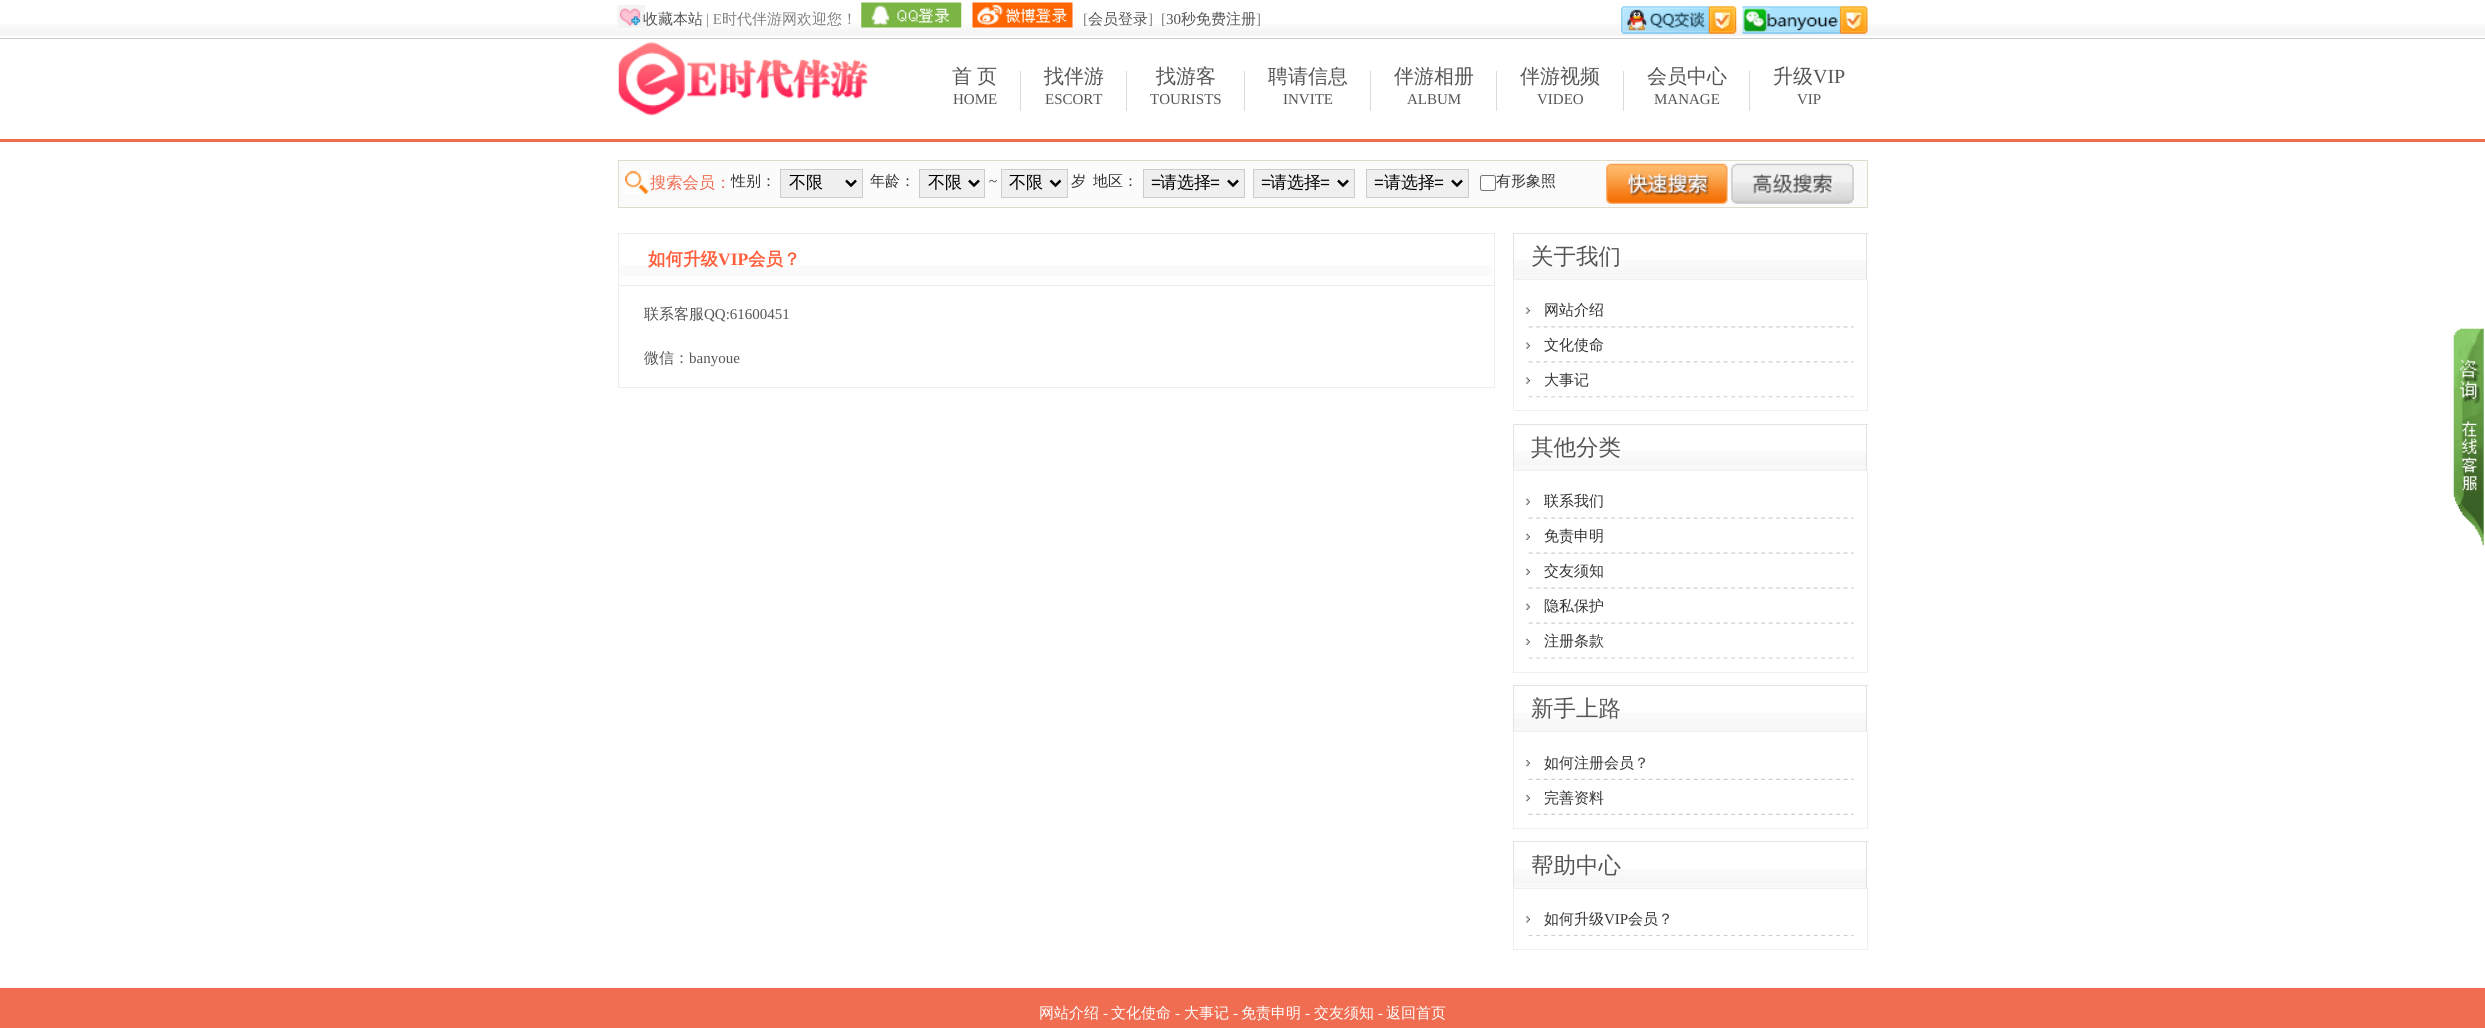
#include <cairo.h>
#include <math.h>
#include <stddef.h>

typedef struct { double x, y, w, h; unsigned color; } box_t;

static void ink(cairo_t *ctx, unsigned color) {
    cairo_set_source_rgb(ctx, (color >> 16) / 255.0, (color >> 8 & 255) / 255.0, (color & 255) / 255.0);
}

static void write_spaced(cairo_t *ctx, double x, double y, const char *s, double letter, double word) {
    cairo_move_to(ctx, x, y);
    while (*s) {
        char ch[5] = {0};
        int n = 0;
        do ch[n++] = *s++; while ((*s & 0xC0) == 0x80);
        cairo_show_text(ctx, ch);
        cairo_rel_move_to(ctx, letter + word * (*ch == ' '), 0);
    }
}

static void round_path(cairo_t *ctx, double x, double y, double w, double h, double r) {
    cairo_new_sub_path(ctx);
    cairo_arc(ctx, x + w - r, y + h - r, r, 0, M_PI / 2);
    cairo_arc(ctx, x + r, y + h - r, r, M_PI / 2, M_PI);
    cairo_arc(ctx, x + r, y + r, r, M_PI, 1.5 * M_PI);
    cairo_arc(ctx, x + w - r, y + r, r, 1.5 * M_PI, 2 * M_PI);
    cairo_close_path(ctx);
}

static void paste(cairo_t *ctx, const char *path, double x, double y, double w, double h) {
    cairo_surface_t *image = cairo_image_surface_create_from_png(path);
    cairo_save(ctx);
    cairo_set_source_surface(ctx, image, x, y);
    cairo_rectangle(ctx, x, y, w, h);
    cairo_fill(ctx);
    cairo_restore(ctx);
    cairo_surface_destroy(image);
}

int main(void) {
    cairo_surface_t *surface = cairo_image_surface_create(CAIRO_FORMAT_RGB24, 2485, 1028);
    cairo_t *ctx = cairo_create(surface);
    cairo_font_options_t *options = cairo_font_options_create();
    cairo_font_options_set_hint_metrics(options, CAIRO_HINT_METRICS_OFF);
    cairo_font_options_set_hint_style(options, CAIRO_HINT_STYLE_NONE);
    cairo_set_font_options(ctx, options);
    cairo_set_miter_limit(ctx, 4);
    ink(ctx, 0xFFFFFF);
    cairo_paint(ctx);
    paste(ctx, "media/1.png", 0, 24, 2485, 12);
    ink(ctx, 0xCCCCCC);
    cairo_rectangle(ctx, 0, 38, 2485, 1);
    cairo_fill(ctx);
    paste(ctx, "media/2.png", 617, 5, 28, 23);
    cairo_select_font_face(ctx, "WenQuanYi Zen Hei Medium", CAIRO_FONT_SLANT_NORMAL, CAIRO_FONT_WEIGHT_NORMAL);
    cairo_set_font_size(ctx, 15);
    ink(ctx, 0x555555);
    cairo_move_to(ctx, 643, 24);
    cairo_show_text(ctx, "收藏本站");
    cairo_select_font_face(ctx, "Liberation Serif", CAIRO_FONT_SLANT_NORMAL, CAIRO_FONT_WEIGHT_NORMAL);
    ink(ctx, 0x828282);
    cairo_move_to(ctx, 706, 24);
    cairo_show_text(ctx, "| E");
    cairo_select_font_face(ctx, "WenQuanYi Zen Hei Medium", CAIRO_FONT_SLANT_NORMAL, CAIRO_FONT_WEIGHT_NORMAL);
    cairo_move_to(ctx, 722, 24);
    cairo_show_text(ctx, "时代伴游网欢迎您！");
    paste(ctx, "media/3.png", 861, 2, 101, 26);
    paste(ctx, "media/4.png", 972, 2, 101, 26);
    cairo_select_font_face(ctx, "Liberation Serif", CAIRO_FONT_SLANT_NORMAL, CAIRO_FONT_WEIGHT_NORMAL);
    cairo_move_to(ctx, 1083, 24);
    cairo_show_text(ctx, "[");
    cairo_select_font_face(ctx, "WenQuanYi Zen Hei Medium", CAIRO_FONT_SLANT_NORMAL, CAIRO_FONT_WEIGHT_NORMAL);
    ink(ctx, 0x555555);
    cairo_move_to(ctx, 1088, 24);
    cairo_show_text(ctx, "会员登录");
    cairo_select_font_face(ctx, "Liberation Serif", CAIRO_FONT_SLANT_NORMAL, CAIRO_FONT_WEIGHT_NORMAL);
    ink(ctx, 0x828282);
    cairo_move_to(ctx, 1148, 24);
    cairo_show_text(ctx, "]");
    cairo_move_to(ctx, 1161, 24);
    cairo_show_text(ctx, "[");
    ink(ctx, 0x555555);
    cairo_move_to(ctx, 1166, 24);
    cairo_show_text(ctx, "30");
    cairo_select_font_face(ctx, "WenQuanYi Zen Hei Medium", CAIRO_FONT_SLANT_NORMAL, CAIRO_FONT_WEIGHT_NORMAL);
    cairo_move_to(ctx, 1181, 24);
    cairo_show_text(ctx, "秒免费注册");
    cairo_select_font_face(ctx, "Liberation Serif", CAIRO_FONT_SLANT_NORMAL, CAIRO_FONT_WEIGHT_NORMAL);
    ink(ctx, 0x828282);
    cairo_move_to(ctx, 1256, 24);
    cairo_show_text(ctx, "]");
    paste(ctx, "media/5.png", 1621, 6, 116, 28);
    paste(ctx, "media/6.png", 1742, 6, 126, 28);
    ink(ctx, 0xF06D51);
    cairo_rectangle(ctx, 0, 139, 2485, 3);
    cairo_fill(ctx);
    paste(ctx, "media/7.png", 618, 42, 250, 74);
    cairo_select_font_face(ctx, "WenQuanYi Zen Hei Medium", CAIRO_FONT_SLANT_NORMAL, CAIRO_FONT_WEIGHT_NORMAL);
    cairo_set_font_size(ctx, 20);
    ink(ctx, 0x555555);
    write_spaced(ctx, 952, 83, "首 页", 0, -1);
    cairo_select_font_face(ctx, "Liberation Serif", CAIRO_FONT_SLANT_NORMAL, CAIRO_FONT_WEIGHT_NORMAL);
    cairo_set_font_size(ctx, 15);
    cairo_move_to(ctx, 953, 104);
    cairo_show_text(ctx, "HOME");
    ink(ctx, 0xDBDBDB);
    cairo_rectangle(ctx, 1020, 71, 1, 40);
    cairo_fill(ctx);
    cairo_select_font_face(ctx, "WenQuanYi Zen Hei Medium", CAIRO_FONT_SLANT_NORMAL, CAIRO_FONT_WEIGHT_NORMAL);
    cairo_set_font_size(ctx, 20);
    ink(ctx, 0x555555);
    cairo_move_to(ctx, 1044, 83);
    cairo_show_text(ctx, "找伴游");
    cairo_select_font_face(ctx, "Liberation Serif", CAIRO_FONT_SLANT_NORMAL, CAIRO_FONT_WEIGHT_NORMAL);
    cairo_set_font_size(ctx, 15);
    cairo_move_to(ctx, 1045, 104);
    cairo_show_text(ctx, "ESCORT");
    ink(ctx, 0xDBDBDB);
    cairo_rectangle(ctx, 1126, 71, 1, 40);
    cairo_fill(ctx);
    cairo_select_font_face(ctx, "WenQuanYi Zen Hei Medium", CAIRO_FONT_SLANT_NORMAL, CAIRO_FONT_WEIGHT_NORMAL);
    cairo_set_font_size(ctx, 20);
    ink(ctx, 0x555555);
    cairo_move_to(ctx, 1156, 83);
    cairo_show_text(ctx, "找游客");
    cairo_select_font_face(ctx, "Liberation Serif", CAIRO_FONT_SLANT_NORMAL, CAIRO_FONT_WEIGHT_NORMAL);
    cairo_set_font_size(ctx, 15);
    cairo_move_to(ctx, 1150, 104);
    cairo_show_text(ctx, "TOURISTS");
    ink(ctx, 0xDBDBDB);
    cairo_rectangle(ctx, 1244, 71, 1, 40);
    cairo_fill(ctx);
    cairo_select_font_face(ctx, "WenQuanYi Zen Hei Medium", CAIRO_FONT_SLANT_NORMAL, CAIRO_FONT_WEIGHT_NORMAL);
    cairo_set_font_size(ctx, 20);
    ink(ctx, 0x555555);
    cairo_move_to(ctx, 1268, 83);
    cairo_show_text(ctx, "聘请信息");
    cairo_select_font_face(ctx, "Liberation Serif", CAIRO_FONT_SLANT_NORMAL, CAIRO_FONT_WEIGHT_NORMAL);
    cairo_set_font_size(ctx, 15);
    cairo_move_to(ctx, 1283, 104);
    cairo_show_text(ctx, "INVITE");
    ink(ctx, 0xDBDBDB);
    cairo_rectangle(ctx, 1370, 71, 1, 40);
    cairo_fill(ctx);
    cairo_select_font_face(ctx, "WenQuanYi Zen Hei Medium", CAIRO_FONT_SLANT_NORMAL, CAIRO_FONT_WEIGHT_NORMAL);
    cairo_set_font_size(ctx, 20);
    ink(ctx, 0x555555);
    cairo_move_to(ctx, 1394, 83);
    cairo_show_text(ctx, "伴游相册");
    cairo_select_font_face(ctx, "Liberation Serif", CAIRO_FONT_SLANT_NORMAL, CAIRO_FONT_WEIGHT_NORMAL);
    cairo_set_font_size(ctx, 15);
    cairo_move_to(ctx, 1407, 104);
    cairo_show_text(ctx, "ALBUM");
    ink(ctx, 0xDBDBDB);
    cairo_rectangle(ctx, 1496, 71, 1, 40);
    cairo_fill(ctx);
    cairo_select_font_face(ctx, "WenQuanYi Zen Hei Medium", CAIRO_FONT_SLANT_NORMAL, CAIRO_FONT_WEIGHT_NORMAL);
    cairo_set_font_size(ctx, 20);
    ink(ctx, 0x555555);
    cairo_move_to(ctx, 1520, 83);
    cairo_show_text(ctx, "伴游视频");
    cairo_select_font_face(ctx, "Liberation Serif", CAIRO_FONT_SLANT_NORMAL, CAIRO_FONT_WEIGHT_NORMAL);
    cairo_set_font_size(ctx, 15);
    cairo_move_to(ctx, 1537, 104);
    cairo_show_text(ctx, "VIDEO");
    ink(ctx, 0xDBDBDB);
    cairo_rectangle(ctx, 1623, 71, 1, 40);
    cairo_fill(ctx);
    cairo_select_font_face(ctx, "WenQuanYi Zen Hei Medium", CAIRO_FONT_SLANT_NORMAL, CAIRO_FONT_WEIGHT_NORMAL);
    cairo_set_font_size(ctx, 20);
    ink(ctx, 0x555555);
    cairo_move_to(ctx, 1647, 83);
    cairo_show_text(ctx, "会员中心");
    cairo_select_font_face(ctx, "Liberation Serif", CAIRO_FONT_SLANT_NORMAL, CAIRO_FONT_WEIGHT_NORMAL);
    cairo_set_font_size(ctx, 15);
    cairo_move_to(ctx, 1654, 104);
    cairo_show_text(ctx, "MANAGE");
    ink(ctx, 0xDBDBDB);
    cairo_rectangle(ctx, 1749, 71, 1, 40);
    cairo_fill(ctx);
    cairo_select_font_face(ctx, "WenQuanYi Zen Hei Medium", CAIRO_FONT_SLANT_NORMAL, CAIRO_FONT_WEIGHT_NORMAL);
    cairo_set_font_size(ctx, 20);
    ink(ctx, 0x555555);
    cairo_move_to(ctx, 1773, 83);
    cairo_show_text(ctx, "升级");
    cairo_select_font_face(ctx, "Liberation Serif", CAIRO_FONT_SLANT_NORMAL, CAIRO_FONT_WEIGHT_NORMAL);
    cairo_move_to(ctx, 1813, 83);
    cairo_show_text(ctx, "VIP");
    cairo_set_font_size(ctx, 15);
    cairo_move_to(ctx, 1797, 104);
    cairo_show_text(ctx, "VIP");
    ink(ctx, 0xFBFBFB);
    cairo_rectangle(ctx, 618.5, 160.5, 1249, 47);
    cairo_fill_preserve(ctx);
    ink(ctx, 0xDFDCCB);
    cairo_set_line_width(ctx, 1);
    cairo_stroke(ctx);
    paste(ctx, "media/8.png", 625, 171, 24, 23);
    cairo_select_font_face(ctx, "WenQuanYi Zen Hei Medium", CAIRO_FONT_SLANT_NORMAL, CAIRO_FONT_WEIGHT_NORMAL);
    cairo_set_font_size(ctx, 16.25);
    ink(ctx, 0xF06D51);
    cairo_move_to(ctx, 650, 188);
    cairo_show_text(ctx, "搜索会员：");
    cairo_set_font_size(ctx, 15);
    ink(ctx, 0x333333);
    cairo_move_to(ctx, 731, 186);
    cairo_show_text(ctx, "性别：");
    ink(ctx, 0xEFEFEF);
    cairo_rectangle(ctx, 780.5, 169.5, 82, 28);
    cairo_fill_preserve(ctx);
    ink(ctx, 0xCCCCCC);
    cairo_stroke(ctx);
    cairo_new_path(ctx);
    cairo_move_to(ctx, 846, 180.5);
    cairo_line_to(ctx, 851, 185.5);
    cairo_line_to(ctx, 856, 180.5);
    ink(ctx, 0x000000);
    cairo_set_line_width(ctx, 2.5);
    cairo_stroke(ctx);
    cairo_set_font_size(ctx, 17);
    cairo_move_to(ctx, 789, 188);
    cairo_show_text(ctx, "不限");
    cairo_set_font_size(ctx, 15);
    ink(ctx, 0x333333);
    cairo_move_to(ctx, 870, 186);
    cairo_show_text(ctx, "年龄：");
    ink(ctx, 0xEFEFEF);
    cairo_rectangle(ctx, 919.5, 169.5, 65, 28);
    cairo_fill_preserve(ctx);
    ink(ctx, 0xCCCCCC);
    cairo_set_line_width(ctx, 1);
    cairo_stroke(ctx);
    cairo_new_path(ctx);
    cairo_move_to(ctx, 969, 180.5);
    cairo_line_to(ctx, 974, 185.5);
    cairo_line_to(ctx, 979, 180.5);
    ink(ctx, 0x000000);
    cairo_set_line_width(ctx, 2.5);
    cairo_stroke(ctx);
    cairo_set_font_size(ctx, 17);
    cairo_move_to(ctx, 928, 188);
    cairo_show_text(ctx, "不限");
    cairo_select_font_face(ctx, "Liberation Serif", CAIRO_FONT_SLANT_NORMAL, CAIRO_FONT_WEIGHT_NORMAL);
    cairo_set_font_size(ctx, 15);
    ink(ctx, 0x333333);
    cairo_move_to(ctx, 989, 186);
    cairo_show_text(ctx, "~");
    ink(ctx, 0xEFEFEF);
    cairo_rectangle(ctx, 1001.5, 169.5, 66, 28);
    cairo_fill_preserve(ctx);
    ink(ctx, 0xCCCCCC);
    cairo_set_line_width(ctx, 1);
    cairo_stroke(ctx);
    cairo_new_path(ctx);
    cairo_move_to(ctx, 1050.5, 180.5);
    cairo_line_to(ctx, 1055.5, 185.5);
    cairo_line_to(ctx, 1060.5, 180.5);
    ink(ctx, 0x000000);
    cairo_set_line_width(ctx, 2.5);
    cairo_stroke(ctx);
    cairo_select_font_face(ctx, "WenQuanYi Zen Hei Medium", CAIRO_FONT_SLANT_NORMAL, CAIRO_FONT_WEIGHT_NORMAL);
    cairo_set_font_size(ctx, 17);
    cairo_move_to(ctx, 1009, 188);
    cairo_show_text(ctx, "不限");
    cairo_set_font_size(ctx, 15);
    ink(ctx, 0x333333);
    cairo_move_to(ctx, 1071, 186);
    cairo_show_text(ctx, "岁");
    cairo_move_to(ctx, 1093, 186);
    cairo_show_text(ctx, "地区：");
    ink(ctx, 0xEFEFEF);
    cairo_rectangle(ctx, 1143.5, 169.5, 101, 28);
    cairo_fill_preserve(ctx);
    ink(ctx, 0xCCCCCC);
    cairo_set_line_width(ctx, 1);
    cairo_stroke(ctx);
    cairo_new_path(ctx);
    cairo_move_to(ctx, 1228, 180.5);
    cairo_line_to(ctx, 1233, 185.5);
    cairo_line_to(ctx, 1238, 180.5);
    ink(ctx, 0x000000);
    cairo_set_line_width(ctx, 2.5);
    cairo_stroke(ctx);
    cairo_select_font_face(ctx, "Liberation Sans", CAIRO_FONT_SLANT_NORMAL, CAIRO_FONT_WEIGHT_NORMAL);
    cairo_set_font_size(ctx, 17);
    cairo_move_to(ctx, 1151, 188);
    cairo_show_text(ctx, "=");
    cairo_select_font_face(ctx, "WenQuanYi Zen Hei Medium", CAIRO_FONT_SLANT_NORMAL, CAIRO_FONT_WEIGHT_NORMAL);
    cairo_move_to(ctx, 1160, 188);
    cairo_show_text(ctx, "请选择");
    cairo_select_font_face(ctx, "Liberation Sans", CAIRO_FONT_SLANT_NORMAL, CAIRO_FONT_WEIGHT_NORMAL);
    cairo_move_to(ctx, 1210, 188);
    cairo_show_text(ctx, "=");
    ink(ctx, 0xEFEFEF);
    cairo_rectangle(ctx, 1253.5, 169.5, 101, 28);
    cairo_fill_preserve(ctx);
    ink(ctx, 0xCCCCCC);
    cairo_set_line_width(ctx, 1);
    cairo_stroke(ctx);
    cairo_new_path(ctx);
    cairo_move_to(ctx, 1338, 180.5);
    cairo_line_to(ctx, 1343, 185.5);
    cairo_line_to(ctx, 1348, 180.5);
    ink(ctx, 0x000000);
    cairo_set_line_width(ctx, 2.5);
    cairo_stroke(ctx);
    cairo_move_to(ctx, 1261, 188);
    cairo_show_text(ctx, "=");
    cairo_select_font_face(ctx, "WenQuanYi Zen Hei Medium", CAIRO_FONT_SLANT_NORMAL, CAIRO_FONT_WEIGHT_NORMAL);
    cairo_move_to(ctx, 1270, 188);
    cairo_show_text(ctx, "请选择");
    cairo_select_font_face(ctx, "Liberation Sans", CAIRO_FONT_SLANT_NORMAL, CAIRO_FONT_WEIGHT_NORMAL);
    cairo_move_to(ctx, 1320, 188);
    cairo_show_text(ctx, "=");
    ink(ctx, 0xEFEFEF);
    cairo_rectangle(ctx, 1366.5, 169.5, 102, 28);
    cairo_fill_preserve(ctx);
    ink(ctx, 0xCCCCCC);
    cairo_set_line_width(ctx, 1);
    cairo_stroke(ctx);
    cairo_new_path(ctx);
    cairo_move_to(ctx, 1452, 180.5);
    cairo_line_to(ctx, 1457, 185.5);
    cairo_line_to(ctx, 1462, 180.5);
    ink(ctx, 0x000000);
    cairo_set_line_width(ctx, 2.5);
    cairo_stroke(ctx);
    cairo_move_to(ctx, 1374, 188);
    cairo_show_text(ctx, "=");
    cairo_select_font_face(ctx, "WenQuanYi Zen Hei Medium", CAIRO_FONT_SLANT_NORMAL, CAIRO_FONT_WEIGHT_NORMAL);
    cairo_move_to(ctx, 1384, 188);
    cairo_show_text(ctx, "请选择");
    cairo_select_font_face(ctx, "Liberation Sans", CAIRO_FONT_SLANT_NORMAL, CAIRO_FONT_WEIGHT_NORMAL);
    cairo_move_to(ctx, 1434, 188);
    cairo_show_text(ctx, "=");
    ink(ctx, 0xFFFFFF);
    round_path(ctx, 1480.5, 175.5, 15, 15, 2);
    cairo_fill_preserve(ctx);
    ink(ctx, 0x767676);
    cairo_set_line_width(ctx, 1);
    cairo_stroke(ctx);
    cairo_select_font_face(ctx, "WenQuanYi Zen Hei Medium", CAIRO_FONT_SLANT_NORMAL, CAIRO_FONT_WEIGHT_NORMAL);
    cairo_set_font_size(ctx, 15);
    ink(ctx, 0x333333);
    cairo_move_to(ctx, 1496, 186);
    cairo_show_text(ctx, "有形象照");
    paste(ctx, "media/9.png", 1606, 163, 122, 41);
    paste(ctx, "media/10.png", 1731, 163, 123, 41);
    cairo_rectangle(ctx, 618.5, 233.5, 876, 154);
    ink(ctx, 0xEDEDED);
    cairo_stroke(ctx);
    ink(ctx, 0xFAFAFA);
    cairo_rectangle(ctx, 619, 265, 874, 11);
    cairo_fill(ctx);
    ink(ctx, 0xEDEDED);
    cairo_rectangle(ctx, 619, 285, 875, 1);
    cairo_fill(ctx);
    cairo_select_font_face(ctx, "WenQuanYi Zen Hei", CAIRO_FONT_SLANT_NORMAL, CAIRO_FONT_WEIGHT_BOLD);
    cairo_set_font_size(ctx, 17.5);
    ink(ctx, 0xFF5F3D);
    cairo_move_to(ctx, 648, 265);
    cairo_show_text(ctx, "如何升级");
    cairo_select_font_face(ctx, "Liberation Serif", CAIRO_FONT_SLANT_NORMAL, CAIRO_FONT_WEIGHT_BOLD);
    cairo_move_to(ctx, 718, 265);
    cairo_show_text(ctx, "VIP");
    cairo_select_font_face(ctx, "WenQuanYi Zen Hei", CAIRO_FONT_SLANT_NORMAL, CAIRO_FONT_WEIGHT_BOLD);
    cairo_move_to(ctx, 748, 265);
    cairo_show_text(ctx, "会员？");
    cairo_select_font_face(ctx, "WenQuanYi Zen Hei Medium", CAIRO_FONT_SLANT_NORMAL, CAIRO_FONT_WEIGHT_NORMAL);
    cairo_set_font_size(ctx, 15);
    ink(ctx, 0x555555);
    cairo_move_to(ctx, 644, 319);
    cairo_show_text(ctx, "联系客服");
    cairo_select_font_face(ctx, "Liberation Serif", CAIRO_FONT_SLANT_NORMAL, CAIRO_FONT_WEIGHT_NORMAL);
    cairo_move_to(ctx, 704, 319);
    cairo_show_text(ctx, "QQ:61600451");
    cairo_select_font_face(ctx, "WenQuanYi Zen Hei Medium", CAIRO_FONT_SLANT_NORMAL, CAIRO_FONT_WEIGHT_NORMAL);
    cairo_move_to(ctx, 644, 363);
    cairo_show_text(ctx, "微信：");
    cairo_select_font_face(ctx, "Liberation Serif", CAIRO_FONT_SLANT_NORMAL, CAIRO_FONT_WEIGHT_NORMAL);
    cairo_move_to(ctx, 689, 363);
    cairo_show_text(ctx, "banyoue");
    paste(ctx, "media/11.png", 1514, 260, 352, 19);
    {
        static const box_t items[] = {
            {1513, 233, 355, 1, 0xE3E3E3},
            {1866, 233, 1, 46, 0xE3E3E3},
            {1513, 233, 1, 46, 0xE3E3E3},
        };
        for (size_t i = 0; i < sizeof items / sizeof *items; i++) {
            ink(ctx, items[i].color);
            cairo_rectangle(ctx, items[i].x, items[i].y, items[i].w, items[i].h);
            cairo_fill(ctx);
        }
    }
    cairo_select_font_face(ctx, "WenQuanYi Zen Hei Medium", CAIRO_FONT_SLANT_NORMAL, CAIRO_FONT_WEIGHT_NORMAL);
    cairo_set_font_size(ctx, 22.5);
    ink(ctx, 0x555555);
    cairo_move_to(ctx, 1531, 264);
    cairo_show_text(ctx, "关于我们");
    cairo_rectangle(ctx, 1513.5, 279.5, 354, 131);
    ink(ctx, 0xEFEFEF);
    cairo_stroke(ctx);
    paste(ctx, "media/12.png", 1528, 326, 326, 2);
    paste(ctx, "media/13.png", 1526, 307, 4, 7);
    cairo_set_font_size(ctx, 15);
    ink(ctx, 0x333333);
    cairo_move_to(ctx, 1544, 315);
    cairo_show_text(ctx, "网站介绍");
    paste(ctx, "media/12.png", 1528, 361, 326, 2);
    paste(ctx, "media/13.png", 1526, 342, 4, 7);
    cairo_move_to(ctx, 1544, 350);
    cairo_show_text(ctx, "文化使命");
    paste(ctx, "media/14.png", 1528, 396, 326, 2);
    paste(ctx, "media/13.png", 1526, 377, 4, 7);
    cairo_move_to(ctx, 1544, 385);
    cairo_show_text(ctx, "大事记");
    paste(ctx, "media/15.png", 1514, 451, 352, 19);
    {
        static const box_t items[] = {
            {1513, 424, 355, 1, 0xE3E3E3},
            {1866, 424, 1, 46, 0xE3E3E3},
            {1513, 424, 1, 46, 0xE3E3E3},
        };
        for (size_t i = 0; i < sizeof items / sizeof *items; i++) {
            ink(ctx, items[i].color);
            cairo_rectangle(ctx, items[i].x, items[i].y, items[i].w, items[i].h);
            cairo_fill(ctx);
        }
    }
    cairo_set_font_size(ctx, 22.5);
    ink(ctx, 0x555555);
    cairo_move_to(ctx, 1531, 455);
    cairo_show_text(ctx, "其他分类");
    cairo_rectangle(ctx, 1513.5, 470.5, 354, 202);
    ink(ctx, 0xEFEFEF);
    cairo_stroke(ctx);
    paste(ctx, "media/16.png", 1528, 517, 326, 2);
    paste(ctx, "media/17.png", 1526, 498, 4, 7);
    cairo_set_font_size(ctx, 15);
    ink(ctx, 0x333333);
    cairo_move_to(ctx, 1544, 506);
    cairo_show_text(ctx, "联系我们");
    paste(ctx, "media/16.png", 1528, 552, 326, 2);
    paste(ctx, "media/17.png", 1526, 533, 4, 7);
    cairo_move_to(ctx, 1544, 541);
    cairo_show_text(ctx, "免责申明");
    paste(ctx, "media/16.png", 1528, 587, 326, 2);
    paste(ctx, "media/17.png", 1526, 568, 4, 7);
    cairo_move_to(ctx, 1544, 576);
    cairo_show_text(ctx, "交友须知");
    paste(ctx, "media/16.png", 1528, 622, 326, 2);
    paste(ctx, "media/17.png", 1526, 603, 4, 7);
    cairo_move_to(ctx, 1544, 611);
    cairo_show_text(ctx, "隐私保护");
    paste(ctx, "media/18.png", 1528, 657, 326, 2);
    paste(ctx, "media/17.png", 1526, 638, 4, 7);
    cairo_move_to(ctx, 1544, 646);
    cairo_show_text(ctx, "注册条款");
    paste(ctx, "media/19.png", 1514, 713, 352, 18);
    {
        static const box_t items[] = {
            {1513, 685, 355, 1, 0xE3E3E3},
            {1866, 685, 1, 46, 0xE3E3E3},
            {1513, 685, 1, 46, 0xE3E3E3},
        };
        for (size_t i = 0; i < sizeof items / sizeof *items; i++) {
            ink(ctx, items[i].color);
            cairo_rectangle(ctx, items[i].x, items[i].y, items[i].w, items[i].h);
            cairo_fill(ctx);
        }
    }
    cairo_set_font_size(ctx, 22.5);
    ink(ctx, 0x555555);
    cairo_move_to(ctx, 1531, 716);
    cairo_show_text(ctx, "新手上路");
    cairo_rectangle(ctx, 1513.5, 731.5, 354, 97);
    ink(ctx, 0xEFEFEF);
    cairo_stroke(ctx);
    paste(ctx, "media/20.png", 1528, 778, 326, 2);
    paste(ctx, "media/21.png", 1526, 760, 4, 7);
    cairo_set_font_size(ctx, 15);
    ink(ctx, 0x333333);
    cairo_move_to(ctx, 1544, 768);
    cairo_show_text(ctx, "如何注册会员？");
    paste(ctx, "media/20.png", 1528, 813, 326, 2);
    paste(ctx, "media/21.png", 1526, 795, 4, 7);
    cairo_move_to(ctx, 1544, 803);
    cairo_show_text(ctx, "完善资料");
    paste(ctx, "media/22.png", 1514, 869, 352, 19);
    {
        static const box_t items[] = {
            {1513, 841, 355, 1, 0xE3E3E3},
            {1866, 841, 1, 47, 0xE3E3E3},
            {1513, 841, 1, 47, 0xE3E3E3},
        };
        for (size_t i = 0; i < sizeof items / sizeof *items; i++) {
            ink(ctx, items[i].color);
            cairo_rectangle(ctx, items[i].x, items[i].y, items[i].w, items[i].h);
            cairo_fill(ctx);
        }
    }
    cairo_set_font_size(ctx, 22.5);
    ink(ctx, 0x555555);
    cairo_move_to(ctx, 1531, 873);
    cairo_show_text(ctx, "帮助中心");
    cairo_rectangle(ctx, 1513.5, 888.5, 354, 61);
    ink(ctx, 0xEFEFEF);
    cairo_stroke(ctx);
    paste(ctx, "media/23.png", 1528, 935, 326, 1);
    paste(ctx, "media/24.png", 1526, 916, 4, 7);
    cairo_set_font_size(ctx, 15);
    ink(ctx, 0x333333);
    cairo_move_to(ctx, 1544, 924);
    cairo_show_text(ctx, "如何升级");
    cairo_select_font_face(ctx, "Liberation Serif", CAIRO_FONT_SLANT_NORMAL, CAIRO_FONT_WEIGHT_NORMAL);
    cairo_move_to(ctx, 1604, 924);
    cairo_show_text(ctx, "VIP");
    cairo_select_font_face(ctx, "WenQuanYi Zen Hei Medium", CAIRO_FONT_SLANT_NORMAL, CAIRO_FONT_WEIGHT_NORMAL);
    cairo_move_to(ctx, 1628, 924);
    cairo_show_text(ctx, "会员？");
    paste(ctx, "media/25.png", 2453, 328, 31, 218);
    ink(ctx, 0xF06D51);
    cairo_rectangle(ctx, 0, 988, 2485, 40);
    cairo_fill(ctx);
    ink(ctx, 0xFFFFFF);
    cairo_move_to(ctx, 1039, 1018);
    cairo_show_text(ctx, "网站介绍");
    cairo_select_font_face(ctx, "Liberation Serif", CAIRO_FONT_SLANT_NORMAL, CAIRO_FONT_WEIGHT_NORMAL);
    cairo_move_to(ctx, 1103, 1018);
    cairo_show_text(ctx, "-");
    cairo_select_font_face(ctx, "WenQuanYi Zen Hei Medium", CAIRO_FONT_SLANT_NORMAL, CAIRO_FONT_WEIGHT_NORMAL);
    cairo_move_to(ctx, 1111, 1018);
    cairo_show_text(ctx, "文化使命");
    cairo_select_font_face(ctx, "Liberation Serif", CAIRO_FONT_SLANT_NORMAL, CAIRO_FONT_WEIGHT_NORMAL);
    cairo_move_to(ctx, 1175, 1018);
    cairo_show_text(ctx, "-");
    cairo_select_font_face(ctx, "WenQuanYi Zen Hei Medium", CAIRO_FONT_SLANT_NORMAL, CAIRO_FONT_WEIGHT_NORMAL);
    cairo_move_to(ctx, 1184, 1018);
    cairo_show_text(ctx, "大事记");
    cairo_select_font_face(ctx, "Liberation Serif", CAIRO_FONT_SLANT_NORMAL, CAIRO_FONT_WEIGHT_NORMAL);
    cairo_move_to(ctx, 1233, 1018);
    cairo_show_text(ctx, "-");
    cairo_select_font_face(ctx, "WenQuanYi Zen Hei Medium", CAIRO_FONT_SLANT_NORMAL, CAIRO_FONT_WEIGHT_NORMAL);
    cairo_move_to(ctx, 1241, 1018);
    cairo_show_text(ctx, "免责申明");
    cairo_select_font_face(ctx, "Liberation Serif", CAIRO_FONT_SLANT_NORMAL, CAIRO_FONT_WEIGHT_NORMAL);
    cairo_move_to(ctx, 1305, 1018);
    cairo_show_text(ctx, "-");
    cairo_select_font_face(ctx, "WenQuanYi Zen Hei Medium", CAIRO_FONT_SLANT_NORMAL, CAIRO_FONT_WEIGHT_NORMAL);
    cairo_move_to(ctx, 1314, 1018);
    cairo_show_text(ctx, "交友须知");
    cairo_select_font_face(ctx, "Liberation Serif", CAIRO_FONT_SLANT_NORMAL, CAIRO_FONT_WEIGHT_NORMAL);
    cairo_move_to(ctx, 1378, 1018);
    cairo_show_text(ctx, "-");
    cairo_select_font_face(ctx, "WenQuanYi Zen Hei Medium", CAIRO_FONT_SLANT_NORMAL, CAIRO_FONT_WEIGHT_NORMAL);
    cairo_move_to(ctx, 1386, 1018);
    cairo_show_text(ctx, "返回首页");
    cairo_surface_write_to_png(surface, "image.png");
    cairo_font_options_destroy(options);
    cairo_destroy(ctx);
    cairo_surface_destroy(surface);
    return 0;
}
